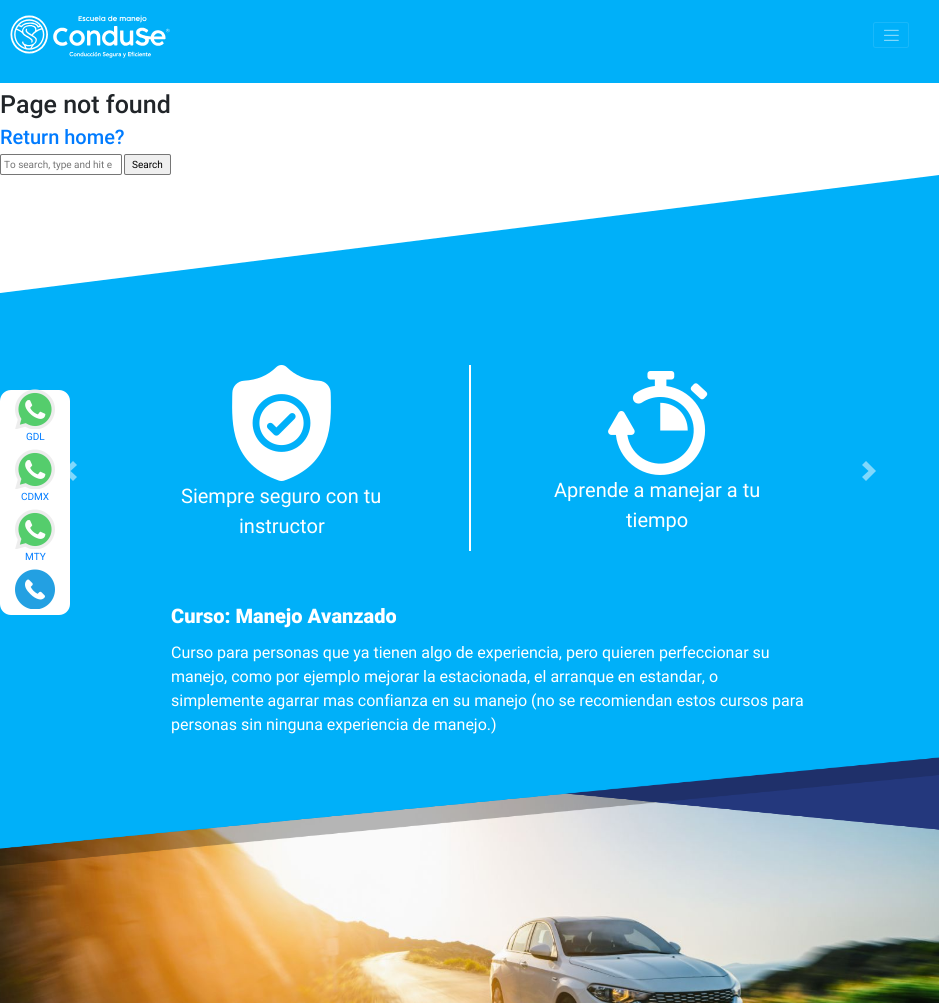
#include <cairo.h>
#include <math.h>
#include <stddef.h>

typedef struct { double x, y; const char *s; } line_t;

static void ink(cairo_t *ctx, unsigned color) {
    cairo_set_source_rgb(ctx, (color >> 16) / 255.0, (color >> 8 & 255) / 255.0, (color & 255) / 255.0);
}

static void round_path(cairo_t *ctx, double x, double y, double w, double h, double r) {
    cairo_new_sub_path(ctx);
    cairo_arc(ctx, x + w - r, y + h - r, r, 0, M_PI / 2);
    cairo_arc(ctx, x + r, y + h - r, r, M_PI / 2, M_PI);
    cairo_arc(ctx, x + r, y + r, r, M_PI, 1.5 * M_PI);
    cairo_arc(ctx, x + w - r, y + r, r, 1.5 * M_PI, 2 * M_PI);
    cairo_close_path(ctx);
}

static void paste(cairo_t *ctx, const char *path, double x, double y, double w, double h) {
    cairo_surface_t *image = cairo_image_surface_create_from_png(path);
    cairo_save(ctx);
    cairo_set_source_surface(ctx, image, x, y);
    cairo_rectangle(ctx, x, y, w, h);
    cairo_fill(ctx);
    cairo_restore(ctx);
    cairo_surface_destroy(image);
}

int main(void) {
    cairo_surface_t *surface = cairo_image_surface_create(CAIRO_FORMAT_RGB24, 939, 1003);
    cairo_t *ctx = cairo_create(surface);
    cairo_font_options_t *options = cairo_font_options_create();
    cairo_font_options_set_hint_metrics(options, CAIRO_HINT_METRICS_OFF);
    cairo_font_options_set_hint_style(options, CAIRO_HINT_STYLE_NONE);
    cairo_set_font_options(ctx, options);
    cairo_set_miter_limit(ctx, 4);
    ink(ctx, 0xFFFFFF);
    cairo_paint(ctx);
    ink(ctx, 0x00B0F9);
    cairo_rectangle(ctx, 0, 0, 939, 83);
    cairo_fill(ctx);
    paste(ctx, "media/1.png", 10, 15, 160, 43);
    round_path(ctx, 873.5, 22.5, 35, 25, 2);
    ink(ctx, 0x1AB8FA);
    cairo_set_line_width(ctx, 1);
    cairo_stroke(ctx);
    paste(ctx, "media/2.png", 884, 29, 15, 12);
    cairo_select_font_face(ctx, "Roboto Medium", CAIRO_FONT_SLANT_NORMAL, CAIRO_FONT_WEIGHT_NORMAL);
    cairo_set_font_size(ctx, 25);
    ink(ctx, 0x212529);
    cairo_move_to(ctx, 0, 113);
    cairo_show_text(ctx, "Page not found");
    cairo_set_font_size(ctx, 20);
    ink(ctx, 0x007BFF);
    cairo_move_to(ctx, 0, 144);
    cairo_show_text(ctx, "Return home?");
    round_path(ctx, 0.5, 154.5, 121, 20, 1.5);
    ink(ctx, 0x767676);
    cairo_stroke(ctx);
    cairo_select_font_face(ctx, "Roboto", CAIRO_FONT_SLANT_NORMAL, CAIRO_FONT_WEIGHT_NORMAL);
    cairo_set_font_size(ctx, 10);
    ink(ctx, 0x757575);
    cairo_move_to(ctx, 4, 168);
    cairo_show_text(ctx, "To search, type and hit e");
    ink(ctx, 0xEFEFEF);
    round_path(ctx, 124.5, 154.5, 46, 20, 1.5);
    cairo_fill_preserve(ctx);
    ink(ctx, 0x767676);
    cairo_stroke(ctx);
    ink(ctx, 0x000000);
    cairo_move_to(ctx, 132, 168);
    cairo_show_text(ctx, "Search");
    ink(ctx, 0x00B0F9);
    cairo_new_path(ctx);
    cairo_move_to(ctx, 0, 293);
    cairo_line_to(ctx, 0, 767);
    cairo_line_to(ctx, 939, 767);
    cairo_line_to(ctx, 939, 175);
    cairo_close_path(ctx);
    cairo_fill(ctx);
    ink(ctx, 0x80D8FC);
    cairo_new_path(ctx);
    cairo_move_to(ctx, 73, 461);
    cairo_line_to(ctx, 63, 471);
    cairo_line_to(ctx, 73, 481);
    cairo_line_to(ctx, 77, 477);
    cairo_line_to(ctx, 70.5, 471);
    cairo_line_to(ctx, 77, 465);
    cairo_close_path(ctx);
    cairo_fill(ctx);
    ink(ctx, 0xFFFFFF);
    round_path(ctx, 0, 390, 70, 225, 11);
    cairo_fill(ctx);
    paste(ctx, "media/3.png", 15, 389, 40, 40);
    ink(ctx, 0x007BFF);
    cairo_move_to(ctx, 26, 440);
    cairo_show_text(ctx, "GDL");
    paste(ctx, "media/4.png", 15, 449, 40, 40);
    cairo_move_to(ctx, 21, 500);
    cairo_show_text(ctx, "CDMX");
    paste(ctx, "media/4.png", 15, 509, 40, 40);
    cairo_move_to(ctx, 25, 560);
    cairo_show_text(ctx, "MTY");
    paste(ctx, "media/5.png", 15, 569, 40, 40);
    ink(ctx, 0x80D8FC);
    cairo_new_path(ctx);
    cairo_move_to(ctx, 866, 461);
    cairo_line_to(ctx, 862, 465);
    cairo_line_to(ctx, 868.5, 471);
    cairo_line_to(ctx, 862, 477);
    cairo_line_to(ctx, 866, 481);
    cairo_line_to(ctx, 876, 471);
    cairo_close_path(ctx);
    cairo_fill(ctx);
    paste(ctx, "media/6.png", 232, 365, 99, 116);
    cairo_set_font_size(ctx, 20);
    ink(ctx, 0xFFFFFF);
    cairo_move_to(ctx, 181, 503);
    cairo_show_text(ctx, "Siempre seguro con tu");
    cairo_move_to(ctx, 239, 533);
    cairo_show_text(ctx, "instructor");
    cairo_rectangle(ctx, 469, 365, 2, 186);
    cairo_fill(ctx);
    paste(ctx, "media/7.png", 608, 371, 100, 104);
    cairo_move_to(ctx, 554, 497);
    cairo_show_text(ctx, "Aprende a manejar a tu");
    cairo_move_to(ctx, 626, 527);
    cairo_show_text(ctx, "tiempo");
    cairo_select_font_face(ctx, "Roboto Black", CAIRO_FONT_SLANT_NORMAL, CAIRO_FONT_WEIGHT_NORMAL);
    cairo_move_to(ctx, 171, 623);
    cairo_show_text(ctx, "Curso: Manejo Avanzado");
    cairo_select_font_face(ctx, "Roboto", CAIRO_FONT_SLANT_NORMAL, CAIRO_FONT_WEIGHT_NORMAL);
    cairo_set_font_size(ctx, 16);
    {
        static const line_t items[] = {
            {171, 658, "Curso para personas que ya tienen algo de experiencia, pero quieren perfeccionar su"},
            {171, 682, "manejo, como por ejemplo mejorar la estacionada, el arranque en estandar, o"},
            {171, 706, "simplemente agarrar mas confianza en su manejo (no se recomiendan estos cursos para"},
            {171, 730, "personas sin ninguna experiencia de manejo.)"},
        };
        for (size_t i = 0; i < sizeof items / sizeof *items; i++) {
            cairo_move_to(ctx, items[i].x, items[i].y);
            cairo_show_text(ctx, items[i].s);
        }
    }
    paste(ctx, "media/9.png", 0, 767, 939, 236);
    paste(ctx, "media/8.png", 0, 757, 939, 109);
    paste(ctx, "media/10.png", 0, 767, 939, 99);
    cairo_surface_write_to_png(surface, "image.png");
    cairo_font_options_destroy(options);
    cairo_destroy(ctx);
    cairo_surface_destroy(surface);
    return 0;
}
